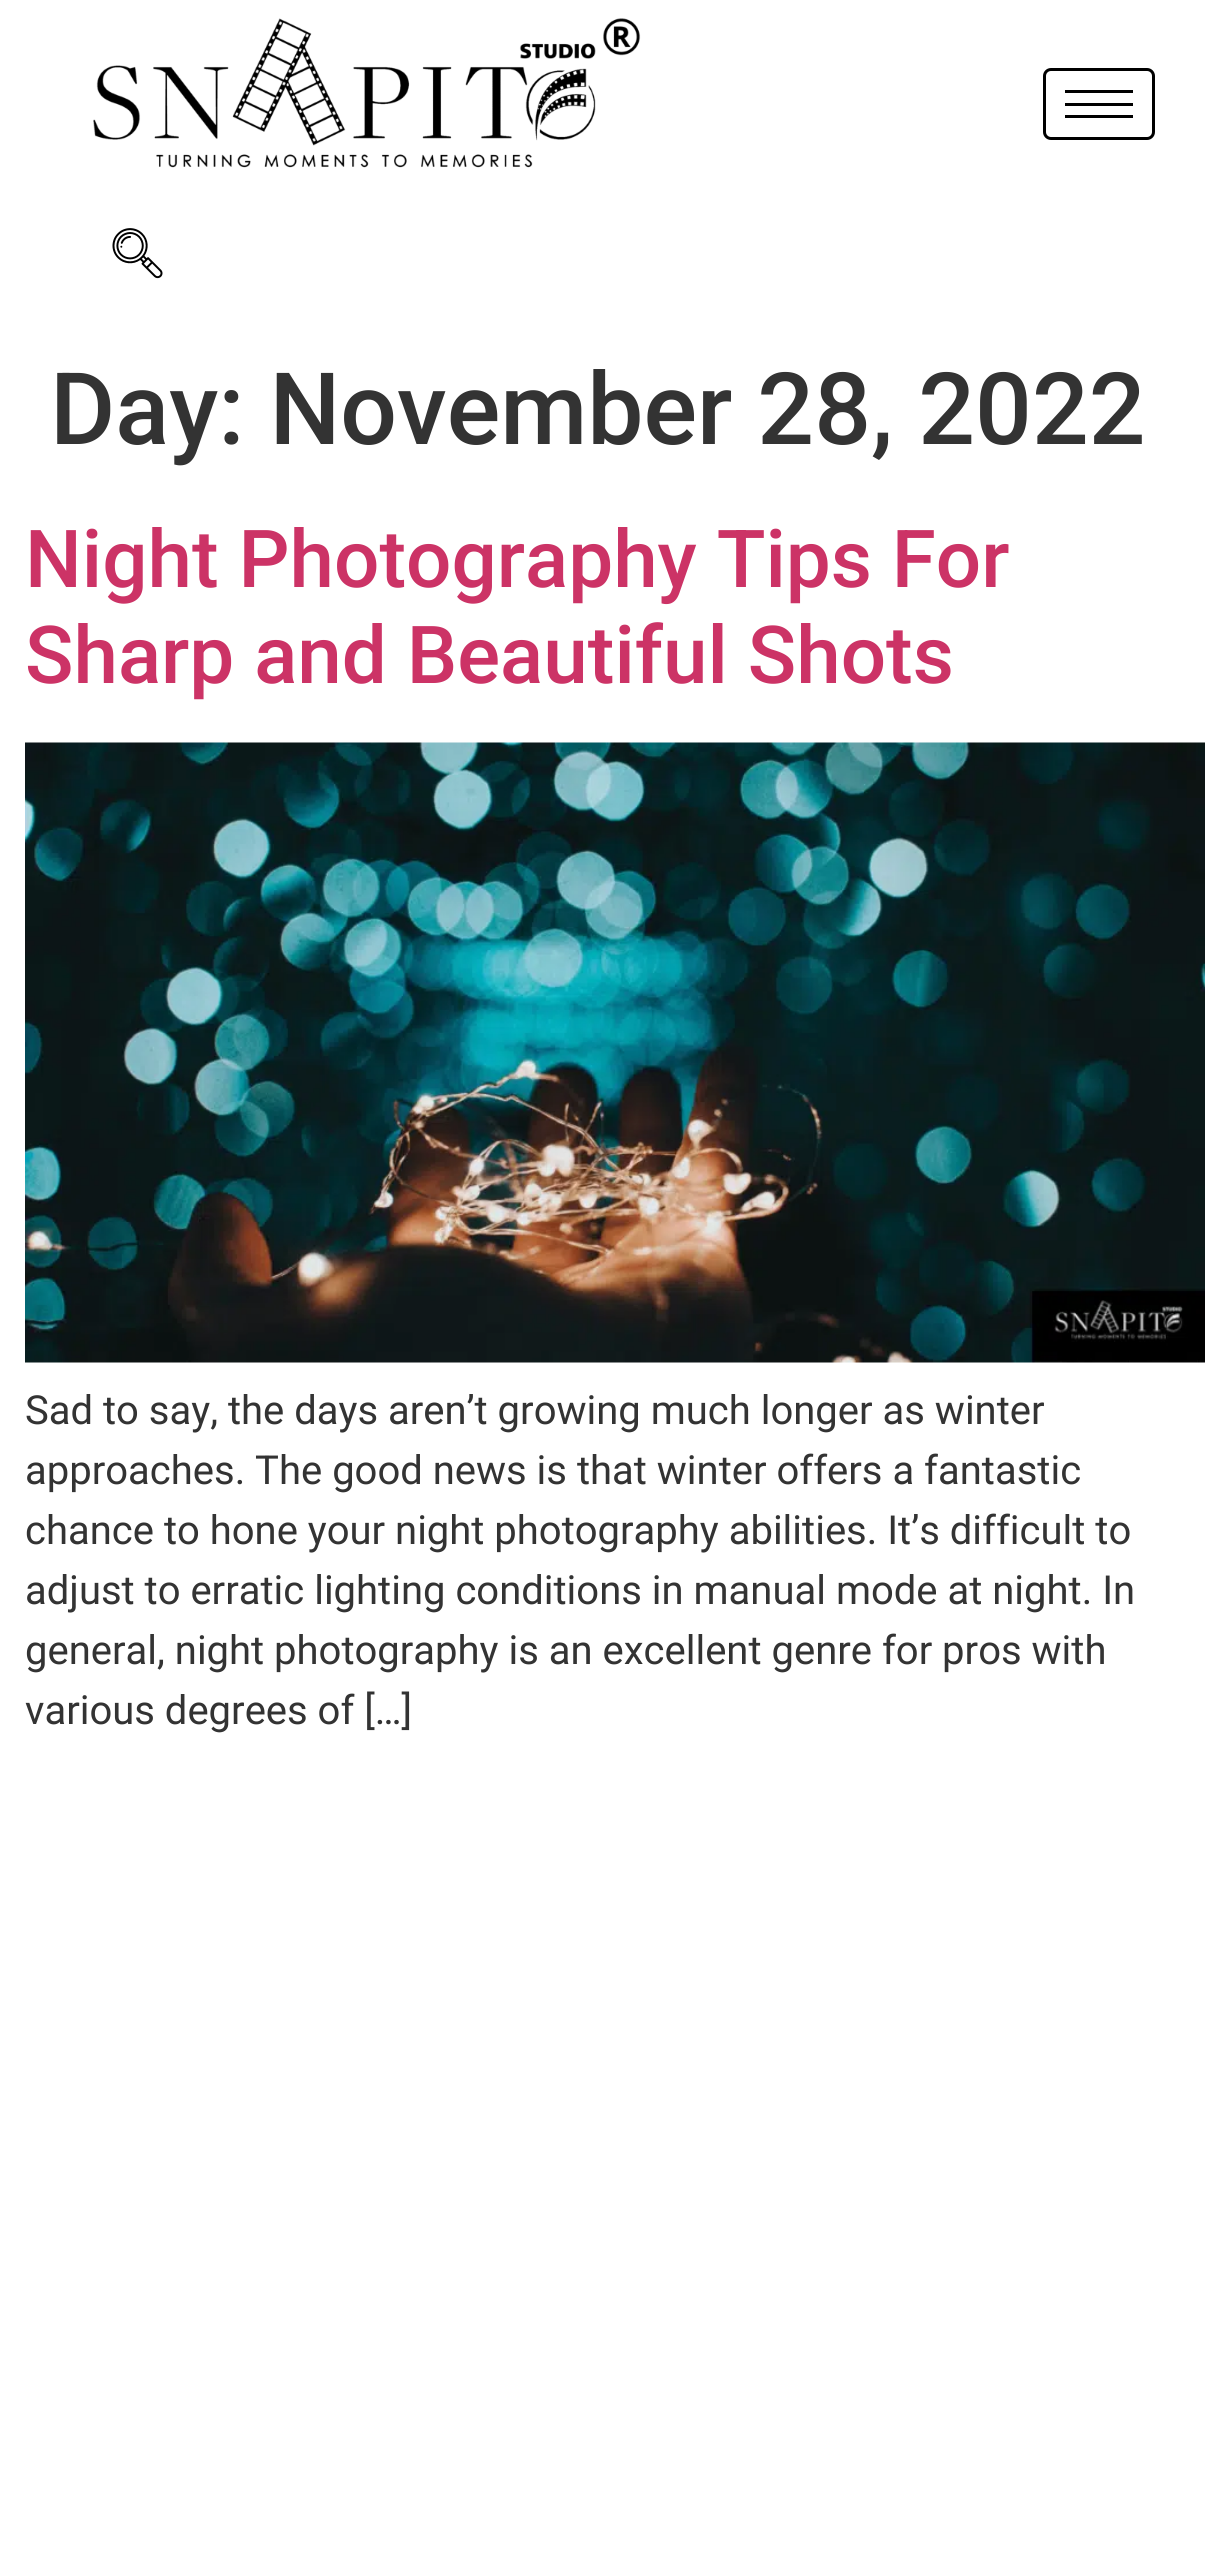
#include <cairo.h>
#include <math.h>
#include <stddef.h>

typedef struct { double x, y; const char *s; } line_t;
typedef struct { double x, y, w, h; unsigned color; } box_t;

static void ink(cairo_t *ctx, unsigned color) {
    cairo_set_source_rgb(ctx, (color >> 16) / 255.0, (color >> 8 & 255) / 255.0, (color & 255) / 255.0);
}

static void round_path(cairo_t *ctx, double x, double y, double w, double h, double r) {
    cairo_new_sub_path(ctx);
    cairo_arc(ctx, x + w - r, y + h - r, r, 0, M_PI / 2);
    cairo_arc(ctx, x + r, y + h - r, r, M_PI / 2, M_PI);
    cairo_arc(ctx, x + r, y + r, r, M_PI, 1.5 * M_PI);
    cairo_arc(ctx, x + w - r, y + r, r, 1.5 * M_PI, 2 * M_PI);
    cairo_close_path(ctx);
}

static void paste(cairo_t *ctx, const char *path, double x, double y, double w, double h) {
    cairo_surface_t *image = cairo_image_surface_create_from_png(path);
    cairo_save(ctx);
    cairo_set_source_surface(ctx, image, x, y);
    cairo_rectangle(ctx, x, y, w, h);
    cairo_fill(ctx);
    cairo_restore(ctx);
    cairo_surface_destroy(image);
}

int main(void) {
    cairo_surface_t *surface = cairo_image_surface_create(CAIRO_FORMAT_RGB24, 1230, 2553);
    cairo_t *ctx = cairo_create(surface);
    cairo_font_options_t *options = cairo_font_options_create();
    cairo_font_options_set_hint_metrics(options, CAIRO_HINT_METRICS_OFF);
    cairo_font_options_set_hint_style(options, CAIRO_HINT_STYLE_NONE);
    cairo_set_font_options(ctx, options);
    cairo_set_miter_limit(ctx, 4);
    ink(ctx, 0xFFFFFF);
    cairo_paint(ctx);
    paste(ctx, "media/1.png", 93, 18, 548, 150);
    round_path(ctx, 1044.5, 69.5, 109, 69, 6.5);
    ink(ctx, 0x000000);
    cairo_set_line_width(ctx, 3);
    cairo_stroke(ctx);
    {
        static const box_t items[] = {
            {1065, 90, 68, 3, 0x000000},
            {1065, 103, 68, 3, 0x000000},
            {1065, 115, 68, 3, 0x000000},
        };
        for (size_t i = 0; i < sizeof items / sizeof *items; i++) {
            ink(ctx, items[i].color);
            cairo_rectangle(ctx, items[i].x, items[i].y, items[i].w, items[i].h);
            cairo_fill(ctx);
        }
    }
    paste(ctx, "media/2.png", 112, 228, 51, 51);
    cairo_select_font_face(ctx, "Roboto Medium", CAIRO_FONT_SLANT_NORMAL, CAIRO_FONT_WEIGHT_NORMAL);
    cairo_set_font_size(ctx, 100);
    ink(ctx, 0x333333);
    cairo_move_to(ctx, 50, 444);
    cairo_show_text(ctx, "Day: November 28, 2022");
    cairo_set_font_size(ctx, 80);
    ink(ctx, 0xCC3366);
    cairo_move_to(ctx, 25, 587);
    cairo_show_text(ctx, "Night Photography Tips For");
    cairo_move_to(ctx, 25, 683);
    cairo_show_text(ctx, "Sharp and Beautiful Shots");
    paste(ctx, "media/3.png", 25, 742, 1180, 621);
    cairo_select_font_face(ctx, "Roboto", CAIRO_FONT_SLANT_NORMAL, CAIRO_FONT_WEIGHT_NORMAL);
    cairo_set_font_size(ctx, 40);
    ink(ctx, 0x333333);
    {
        static const line_t items[] = {
            {25, 1424, "Sad to say, the days aren’t growing much longer as winter"},
            {25, 1484, "approaches. The good news is that winter offers a fantastic"},
            {25, 1544, "chance to hone your night photography abilities. It’s difficult to"},
            {25, 1604, "adjust to erratic lighting conditions in manual mode at night. In"},
            {25, 1664, "general, night photography is an excellent genre for pros with"},
            {25, 1724, "various degrees of […]"},
        };
        for (size_t i = 0; i < sizeof items / sizeof *items; i++) {
            cairo_move_to(ctx, items[i].x, items[i].y);
            cairo_show_text(ctx, items[i].s);
        }
    }
    cairo_surface_write_to_png(surface, "image.png");
    cairo_font_options_destroy(options);
    cairo_destroy(ctx);
    cairo_surface_destroy(surface);
    return 0;
}
